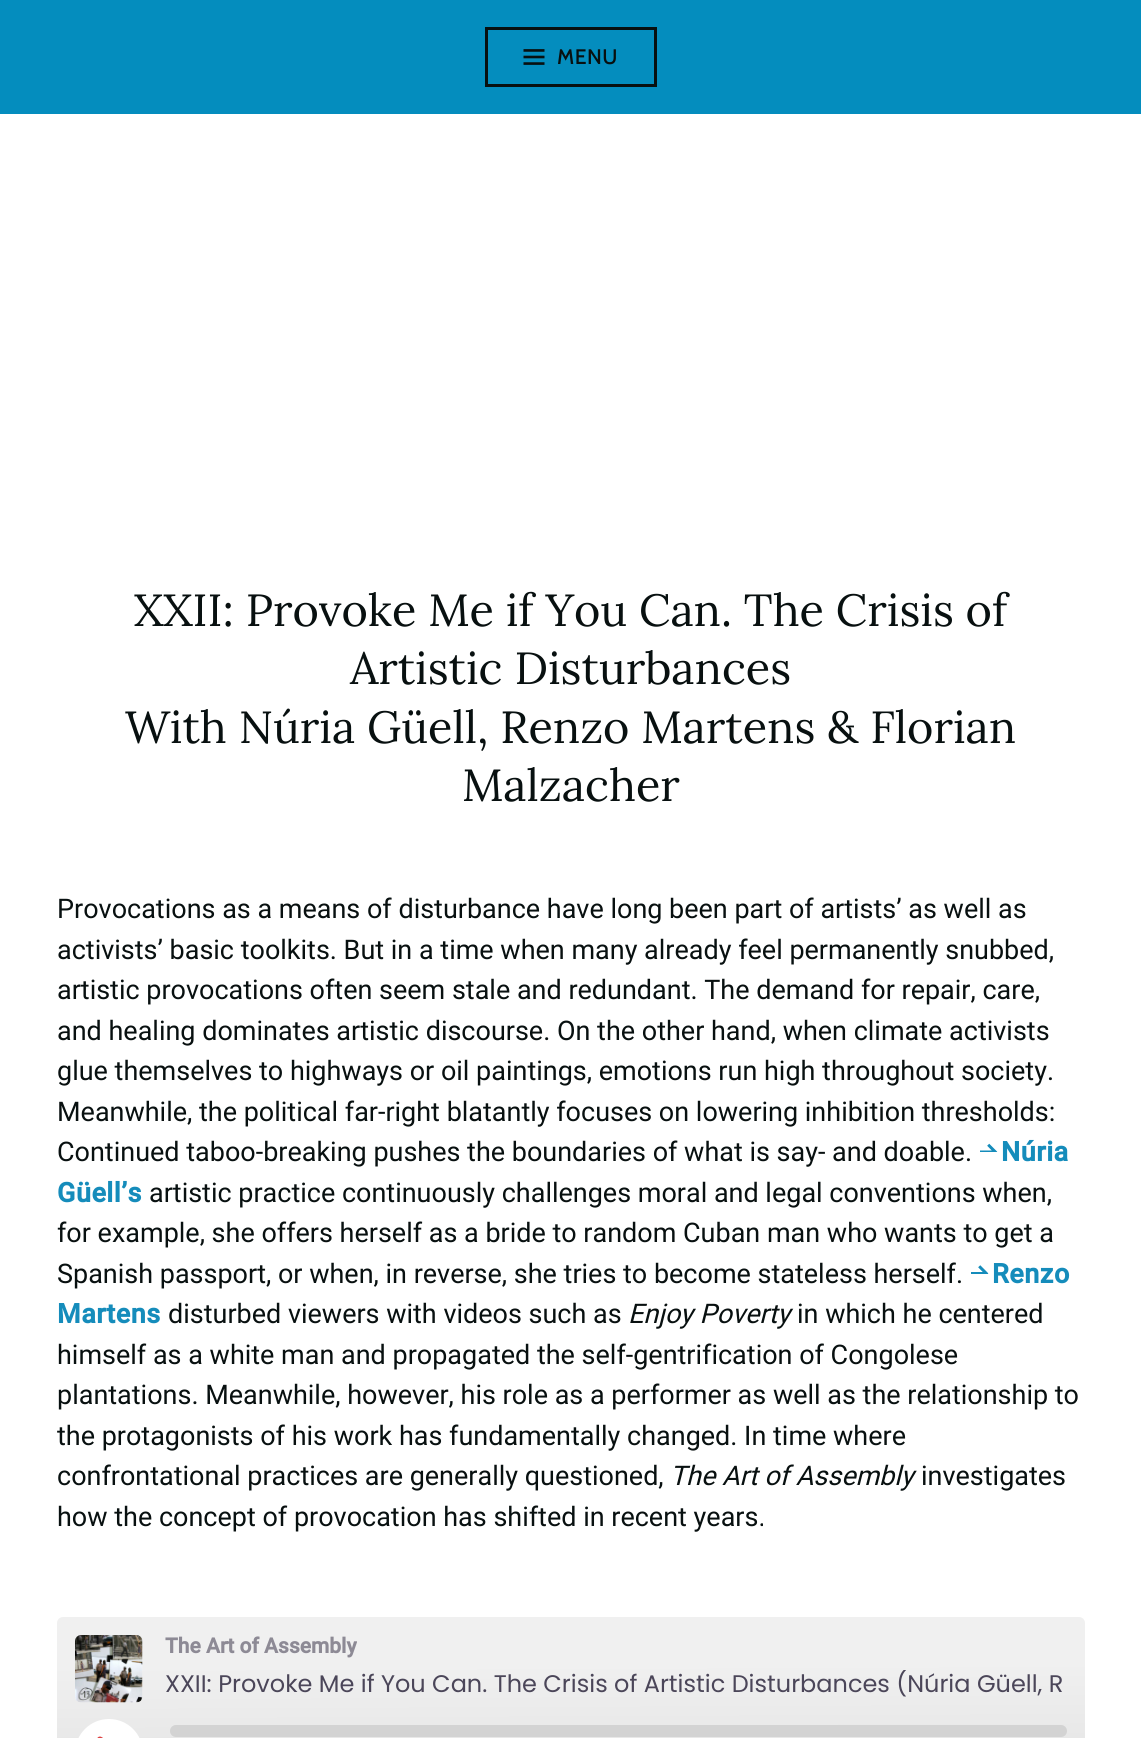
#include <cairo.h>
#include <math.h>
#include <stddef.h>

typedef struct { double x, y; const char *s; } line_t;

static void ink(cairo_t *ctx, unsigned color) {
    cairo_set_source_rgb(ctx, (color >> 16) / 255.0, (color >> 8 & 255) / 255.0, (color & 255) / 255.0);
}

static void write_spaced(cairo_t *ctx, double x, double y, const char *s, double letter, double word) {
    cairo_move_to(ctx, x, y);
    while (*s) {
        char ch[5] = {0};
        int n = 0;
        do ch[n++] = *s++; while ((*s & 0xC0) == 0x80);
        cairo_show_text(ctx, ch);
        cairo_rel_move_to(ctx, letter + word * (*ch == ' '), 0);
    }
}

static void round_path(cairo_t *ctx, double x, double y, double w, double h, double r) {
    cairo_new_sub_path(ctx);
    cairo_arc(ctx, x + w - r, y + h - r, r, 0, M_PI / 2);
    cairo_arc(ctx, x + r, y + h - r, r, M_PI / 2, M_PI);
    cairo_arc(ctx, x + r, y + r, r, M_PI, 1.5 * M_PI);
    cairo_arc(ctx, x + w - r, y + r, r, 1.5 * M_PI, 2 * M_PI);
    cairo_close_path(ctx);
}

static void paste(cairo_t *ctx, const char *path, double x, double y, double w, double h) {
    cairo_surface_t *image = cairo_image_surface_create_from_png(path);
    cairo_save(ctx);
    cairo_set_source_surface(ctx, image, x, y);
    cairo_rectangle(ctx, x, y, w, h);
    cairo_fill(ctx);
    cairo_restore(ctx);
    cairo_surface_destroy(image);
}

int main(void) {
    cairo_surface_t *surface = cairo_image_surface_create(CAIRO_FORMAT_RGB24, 1141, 1738);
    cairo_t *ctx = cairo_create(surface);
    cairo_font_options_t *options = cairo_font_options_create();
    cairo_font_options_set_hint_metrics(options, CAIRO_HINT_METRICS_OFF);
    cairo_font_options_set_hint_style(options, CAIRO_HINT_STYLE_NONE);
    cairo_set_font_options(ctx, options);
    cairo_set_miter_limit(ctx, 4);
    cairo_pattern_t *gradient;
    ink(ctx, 0xFFFFFF);
    cairo_paint(ctx);
    ink(ctx, 0x048DBE);
    cairo_rectangle(ctx, 0, 0, 1141, 114);
    cairo_fill(ctx);
    cairo_rectangle(ctx, 486.5, 28.5, 169, 57);
    ink(ctx, 0x081010);
    cairo_set_line_width(ctx, 3);
    cairo_stroke(ctx);
    paste(ctx, "media/1.png", 523, 49, 22, 16);
    cairo_select_font_face(ctx, "Cabin Medium", CAIRO_FONT_SLANT_NORMAL, CAIRO_FONT_WEIGHT_NORMAL);
    cairo_set_font_size(ctx, 21);
    write_spaced(ctx, 557, 64, "MENU", 0.5, 0);
    cairo_select_font_face(ctx, "Lora", CAIRO_FONT_SLANT_NORMAL, CAIRO_FONT_WEIGHT_NORMAL);
    cairo_set_font_size(ctx, 45);
    {
        static const line_t items[] = {
            {134, 626, "XXII: Provoke Me if You Can. The Crisis of"},
            {350, 684, "Artistic Disturbances"},
            {125, 743, "With Núria Güell, Renzo Martens & Florian"},
            {462, 801, "Malzacher"},
        };
        for (size_t i = 0; i < sizeof items / sizeof *items; i++) {
            cairo_move_to(ctx, items[i].x, items[i].y);
            cairo_show_text(ctx, items[i].s);
        }
    }
    cairo_select_font_face(ctx, "Roboto", CAIRO_FONT_SLANT_NORMAL, CAIRO_FONT_WEIGHT_NORMAL);
    cairo_set_font_size(ctx, 27);
    {
        static const line_t items[] = {
            {57, 918, "Provocations as a means of disturbance have long been part of artists’ as well as"},
            {57, 959, "activists’ basic toolkits. But in a time when many already feel permanently snubbed,"},
            {57, 999, "artistic provocations often seem stale and redundant. The demand for repair, care,"},
            {57, 1040, "and healing dominates artistic discourse. On the other hand, when climate activists"},
            {57, 1080, "glue themselves to highways or oil paintings, emotions run high throughout society."},
            {57, 1121, "Meanwhile, the political far-right blatantly focuses on lowering inhibition thresholds:"},
            {57, 1161, "Continued taboo-breaking pushes the boundaries of what is say- and doable."},
        };
        for (size_t i = 0; i < sizeof items / sizeof *items; i++) {
            cairo_move_to(ctx, items[i].x, items[i].y);
            cairo_show_text(ctx, items[i].s);
        }
    }
    paste(ctx, "media/2.png", 980, 1143, 18, 9);
    cairo_select_font_face(ctx, "Roboto", CAIRO_FONT_SLANT_NORMAL, CAIRO_FONT_WEIGHT_BOLD);
    ink(ctx, 0x158CBB);
    write_spaced(ctx, 1001, 1161, "Núria", 0.5, 0);
    write_spaced(ctx, 57, 1202, "Güell’s", 0.5, 0);
    cairo_select_font_face(ctx, "Roboto", CAIRO_FONT_SLANT_NORMAL, CAIRO_FONT_WEIGHT_NORMAL);
    ink(ctx, 0x081010);
    {
        static const line_t items[] = {
            {149, 1202, "artistic practice continuously challenges moral and legal conventions when,"},
            {57, 1242, "for example, she offers herself as a bride to random Cuban man who wants to get a"},
            {57, 1283, "Spanish passport, or when, in reverse, she tries to become stateless herself."},
        };
        for (size_t i = 0; i < sizeof items / sizeof *items; i++) {
            cairo_move_to(ctx, items[i].x, items[i].y);
            cairo_show_text(ctx, items[i].s);
        }
    }
    paste(ctx, "media/3.png", 971, 1265, 18, 9);
    cairo_select_font_face(ctx, "Roboto", CAIRO_FONT_SLANT_NORMAL, CAIRO_FONT_WEIGHT_BOLD);
    ink(ctx, 0x158CBB);
    write_spaced(ctx, 992, 1283, "Renzo", 0.5, 0);
    write_spaced(ctx, 57, 1323, "Martens", 0.5, 0);
    cairo_select_font_face(ctx, "Roboto", CAIRO_FONT_SLANT_NORMAL, CAIRO_FONT_WEIGHT_NORMAL);
    ink(ctx, 0x081010);
    cairo_move_to(ctx, 168, 1323);
    cairo_show_text(ctx, "disturbed viewers with videos such as");
    cairo_select_font_face(ctx, "Roboto", CAIRO_FONT_SLANT_ITALIC, CAIRO_FONT_WEIGHT_NORMAL);
    cairo_move_to(ctx, 628, 1323);
    cairo_show_text(ctx, "Enjoy Poverty");
    cairo_select_font_face(ctx, "Roboto", CAIRO_FONT_SLANT_NORMAL, CAIRO_FONT_WEIGHT_NORMAL);
    {
        static const line_t items[] = {
            {797, 1323, "in which he centered"},
            {57, 1364, "himself as a white man and propagated the self-gentrification of Congolese"},
            {57, 1404, "plantations. Meanwhile, however, his role as a performer as well as the relationship to"},
            {57, 1445, "the protagonists of his work has fundamentally changed. In time where"},
            {57, 1485, "confrontational practices are generally questioned,"},
        };
        for (size_t i = 0; i < sizeof items / sizeof *items; i++) {
            cairo_move_to(ctx, items[i].x, items[i].y);
            cairo_show_text(ctx, items[i].s);
        }
    }
    cairo_select_font_face(ctx, "Roboto", CAIRO_FONT_SLANT_ITALIC, CAIRO_FONT_WEIGHT_NORMAL);
    cairo_move_to(ctx, 670, 1485);
    cairo_show_text(ctx, "The Art of Assembly");
    cairo_select_font_face(ctx, "Roboto", CAIRO_FONT_SLANT_NORMAL, CAIRO_FONT_WEIGHT_NORMAL);
    cairo_move_to(ctx, 921, 1485);
    cairo_show_text(ctx, "investigates");
    cairo_move_to(ctx, 57, 1526);
    cairo_show_text(ctx, "how the concept of provocation has shifted in recent years.");
    gradient = cairo_pattern_create_linear(571, 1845, 570, 1614);
    cairo_pattern_add_color_stop_rgba(gradient, 0.01, 0.867, 0.867, 0.867, 1);
    cairo_pattern_add_color_stop_rgba(gradient, 0.78, 0.941, 0.941, 0.941, 1);
    cairo_set_source(ctx, gradient);
    cairo_pattern_destroy(gradient);
    round_path(ctx, 57, 1617, 1028, 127, 6);
    cairo_fill(ctx);
    paste(ctx, "media/4.png", 75, 1635, 68, 68);
    cairo_select_font_face(ctx, "Roboto", CAIRO_FONT_SLANT_NORMAL, CAIRO_FONT_WEIGHT_BOLD);
    cairo_set_font_size(ctx, 21);
    ink(ctx, 0x8D8A95);
    cairo_move_to(ctx, 165, 1653);
    cairo_show_text(ctx, "The Art of Assembly");
    cairo_save(ctx);
    cairo_rectangle(ctx, 165, 1670, 902, 37);
    cairo_clip(ctx);
    cairo_select_font_face(ctx, "Poppins", CAIRO_FONT_SLANT_NORMAL, CAIRO_FONT_WEIGHT_NORMAL);
    cairo_set_font_size(ctx, 24);
    ink(ctx, 0x4B4659);
    cairo_move_to(ctx, 165, 1692);
    cairo_show_text(ctx, "XXII: Provoke Me if You Can. The Crisis of Artistic Disturbances (Núria Güell, R");
    cairo_restore(ctx);
    ink(ctx, 0xFFFFFF);
    round_path(ctx, 75, 1719, 68, 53, 34);
    cairo_fill(ctx);
    paste(ctx, "media/5.png", 97, 1736, 6, 2);
    ink(ctx, 0xD3D3D3);
    round_path(ctx, 170, 1725, 897, 12, 6);
    cairo_fill(ctx);
    cairo_surface_write_to_png(surface, "image.png");
    cairo_font_options_destroy(options);
    cairo_destroy(ctx);
    cairo_surface_destroy(surface);
    return 0;
}
